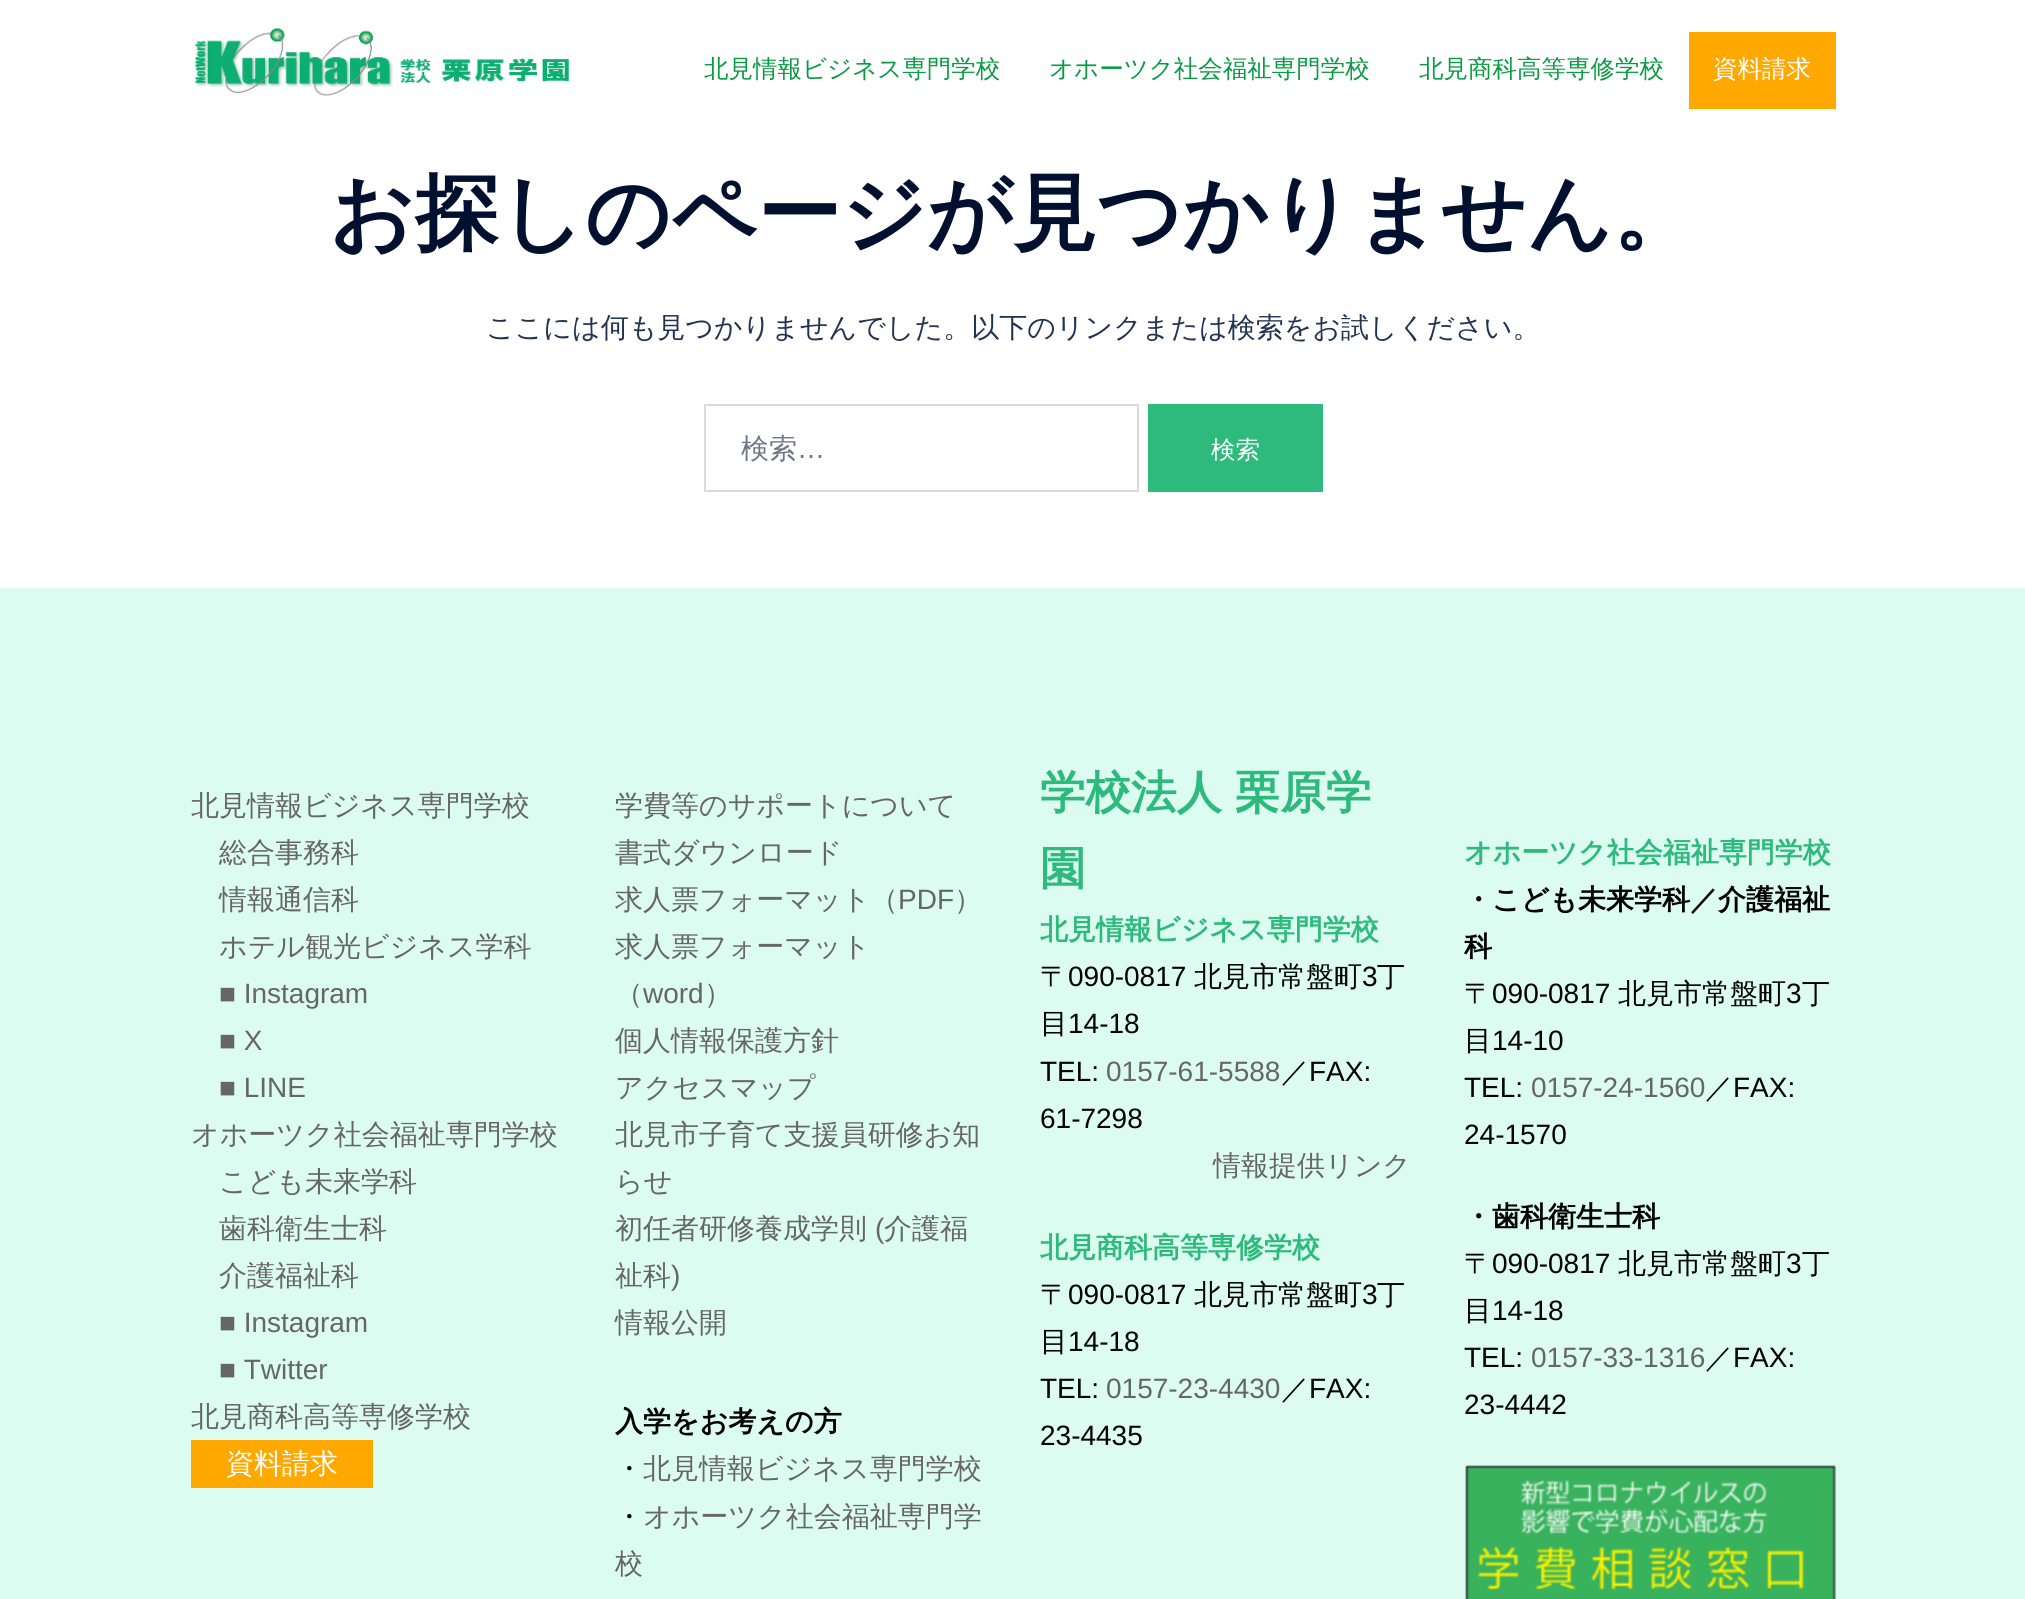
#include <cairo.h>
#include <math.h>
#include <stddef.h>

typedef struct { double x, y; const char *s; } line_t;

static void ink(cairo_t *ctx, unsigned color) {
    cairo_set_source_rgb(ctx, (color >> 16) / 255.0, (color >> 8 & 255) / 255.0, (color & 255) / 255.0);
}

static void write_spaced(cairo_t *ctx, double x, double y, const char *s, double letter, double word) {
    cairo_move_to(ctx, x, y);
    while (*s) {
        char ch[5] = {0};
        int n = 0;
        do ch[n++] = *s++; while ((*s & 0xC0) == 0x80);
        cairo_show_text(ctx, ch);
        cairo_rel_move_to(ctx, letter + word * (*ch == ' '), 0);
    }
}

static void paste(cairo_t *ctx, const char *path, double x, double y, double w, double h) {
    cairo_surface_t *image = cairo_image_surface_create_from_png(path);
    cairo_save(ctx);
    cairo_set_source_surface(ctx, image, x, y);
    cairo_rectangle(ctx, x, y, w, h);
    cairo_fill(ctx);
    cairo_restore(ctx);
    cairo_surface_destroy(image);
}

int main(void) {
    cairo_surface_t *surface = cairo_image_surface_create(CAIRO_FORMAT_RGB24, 2025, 1599);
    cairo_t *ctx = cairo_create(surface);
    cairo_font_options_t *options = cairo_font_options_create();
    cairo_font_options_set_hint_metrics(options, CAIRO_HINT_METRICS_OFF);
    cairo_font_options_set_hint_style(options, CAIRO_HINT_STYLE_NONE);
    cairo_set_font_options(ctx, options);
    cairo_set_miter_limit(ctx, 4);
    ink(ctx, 0xFFFFFF);
    cairo_paint(ctx);
    paste(ctx, "media/1.png", 194, 28, 375, 68);
    cairo_select_font_face(ctx, "WenQuanYi Zen Hei Medium", CAIRO_FONT_SLANT_NORMAL, CAIRO_FONT_WEIGHT_NORMAL);
    cairo_set_font_size(ctx, 24.5);
    ink(ctx, 0x099B43);
    {
        static const line_t items[] = {
            {704, 77, "北見情報ビジネス専門学校"},
            {1049, 77, "オホーツク社会福祉専門学校"},
            {1419, 77, "北見商科高等専修学校"},
        };
        for (size_t i = 0; i < sizeof items / sizeof *items; i++) {
            cairo_move_to(ctx, items[i].x, items[i].y);
            cairo_show_text(ctx, items[i].s);
        }
    }
    ink(ctx, 0xFFA800);
    cairo_rectangle(ctx, 1689, 32, 147, 77);
    cairo_fill(ctx);
    ink(ctx, 0xFFFFFF);
    cairo_move_to(ctx, 1713, 77);
    cairo_show_text(ctx, "資料請求");
    cairo_select_font_face(ctx, "WenQuanYi Zen Hei", CAIRO_FONT_SLANT_NORMAL, CAIRO_FONT_WEIGHT_BOLD);
    cairo_set_font_size(ctx, 84);
    ink(ctx, 0x00102E);
    cairo_move_to(ctx, 329, 242);
    cairo_show_text(ctx, "お探しのページが見つかりません。");
    cairo_select_font_face(ctx, "WenQuanYi Zen Hei Medium", CAIRO_FONT_SLANT_NORMAL, CAIRO_FONT_WEIGHT_NORMAL);
    cairo_set_font_size(ctx, 28);
    ink(ctx, 0x233452);
    cairo_move_to(ctx, 486, 337);
    cairo_show_text(ctx, "ここには何も見つかりませんでした。以下のリンクまたは検索をお試しください。");
    cairo_rectangle(ctx, 705, 405, 433, 86);
    ink(ctx, 0xDBDBDB);
    cairo_stroke(ctx);
    ink(ctx, 0x6D7685);
    cairo_move_to(ctx, 741, 458);
    cairo_show_text(ctx, "検索");
    cairo_select_font_face(ctx, "Liberation Sans", CAIRO_FONT_SLANT_NORMAL, CAIRO_FONT_WEIGHT_NORMAL);
    cairo_move_to(ctx, 797, 458);
    cairo_show_text(ctx, "…");
    ink(ctx, 0x2EBA7D);
    cairo_rectangle(ctx, 1148, 404, 175, 88);
    cairo_fill(ctx);
    cairo_select_font_face(ctx, "WenQuanYi Zen Hei Medium", CAIRO_FONT_SLANT_NORMAL, CAIRO_FONT_WEIGHT_NORMAL);
    cairo_set_font_size(ctx, 24.5);
    ink(ctx, 0xFFFFFF);
    cairo_move_to(ctx, 1211, 458);
    cairo_show_text(ctx, "検索");
    ink(ctx, 0xDCFCF1);
    cairo_rectangle(ctx, 0, 588, 2025, 1011);
    cairo_fill(ctx);
    cairo_set_font_size(ctx, 28);
    ink(ctx, 0x666666);
    {
        static const line_t items[] = {
            {191, 815, "北見情報ビジネス専門学校"},
            {219, 862, "総合事務科"},
            {219, 909, "情報通信科"},
            {219, 956, "ホテル観光ビジネス学科"},
        };
        for (size_t i = 0; i < sizeof items / sizeof *items; i++) {
            cairo_move_to(ctx, items[i].x, items[i].y);
            cairo_show_text(ctx, items[i].s);
        }
    }
    cairo_select_font_face(ctx, "Liberation Sans", CAIRO_FONT_SLANT_NORMAL, CAIRO_FONT_WEIGHT_NORMAL);
    {
        static const line_t items[] = {
            {219, 1003, "■ Instagram"},
            {219, 1050, "■ X"},
            {219, 1097, "■ LINE"},
        };
        for (size_t i = 0; i < sizeof items / sizeof *items; i++) {
            cairo_move_to(ctx, items[i].x, items[i].y);
            cairo_show_text(ctx, items[i].s);
        }
    }
    cairo_select_font_face(ctx, "WenQuanYi Zen Hei Medium", CAIRO_FONT_SLANT_NORMAL, CAIRO_FONT_WEIGHT_NORMAL);
    {
        static const line_t items[] = {
            {191, 1144, "オホーツク社会福祉専門学校"},
            {219, 1191, "こども未来学科"},
            {219, 1238, "歯科衛生士科"},
            {219, 1285, "介護福祉科"},
        };
        for (size_t i = 0; i < sizeof items / sizeof *items; i++) {
            cairo_move_to(ctx, items[i].x, items[i].y);
            cairo_show_text(ctx, items[i].s);
        }
    }
    cairo_select_font_face(ctx, "Liberation Sans", CAIRO_FONT_SLANT_NORMAL, CAIRO_FONT_WEIGHT_NORMAL);
    cairo_move_to(ctx, 219, 1332);
    cairo_show_text(ctx, "■ Instagram");
    cairo_move_to(ctx, 219, 1379);
    cairo_show_text(ctx, "■ Twitter");
    cairo_select_font_face(ctx, "WenQuanYi Zen Hei Medium", CAIRO_FONT_SLANT_NORMAL, CAIRO_FONT_WEIGHT_NORMAL);
    cairo_move_to(ctx, 191, 1426);
    cairo_show_text(ctx, "北見商科高等専修学校");
    ink(ctx, 0xFFA800);
    cairo_rectangle(ctx, 191, 1440, 182, 48);
    cairo_fill(ctx);
    ink(ctx, 0xFFFFFF);
    cairo_move_to(ctx, 226, 1473);
    cairo_show_text(ctx, "資料請求");
    ink(ctx, 0x666666);
    {
        static const line_t items[] = {
            {615, 815, "学費等のサポートについて"},
            {615, 862, "書式ダウンロード"},
            {615, 909, "求人票フォーマット（"},
        };
        for (size_t i = 0; i < sizeof items / sizeof *items; i++) {
            cairo_move_to(ctx, items[i].x, items[i].y);
            cairo_show_text(ctx, items[i].s);
        }
    }
    cairo_select_font_face(ctx, "Liberation Sans", CAIRO_FONT_SLANT_NORMAL, CAIRO_FONT_WEIGHT_NORMAL);
    cairo_move_to(ctx, 898, 909);
    cairo_show_text(ctx, "PDF");
    cairo_select_font_face(ctx, "WenQuanYi Zen Hei Medium", CAIRO_FONT_SLANT_NORMAL, CAIRO_FONT_WEIGHT_NORMAL);
    {
        static const line_t items[] = {
            {954, 909, "）"},
            {615, 956, "求人票フォーマット"},
            {615, 1003, "（"},
        };
        for (size_t i = 0; i < sizeof items / sizeof *items; i++) {
            cairo_move_to(ctx, items[i].x, items[i].y);
            cairo_show_text(ctx, items[i].s);
        }
    }
    cairo_select_font_face(ctx, "Liberation Sans", CAIRO_FONT_SLANT_NORMAL, CAIRO_FONT_WEIGHT_NORMAL);
    cairo_move_to(ctx, 643, 1003);
    cairo_show_text(ctx, "word");
    cairo_select_font_face(ctx, "WenQuanYi Zen Hei Medium", CAIRO_FONT_SLANT_NORMAL, CAIRO_FONT_WEIGHT_NORMAL);
    {
        static const line_t items[] = {
            {704, 1003, "）"},
            {615, 1050, "個人情報保護方針"},
            {615, 1097, "アクセスマップ"},
            {615, 1144, "北見市子育て支援員研修お知"},
            {615, 1191, "らせ"},
            {615, 1238, "初任者研修養成学則"},
        };
        for (size_t i = 0; i < sizeof items / sizeof *items; i++) {
            cairo_move_to(ctx, items[i].x, items[i].y);
            cairo_show_text(ctx, items[i].s);
        }
    }
    cairo_select_font_face(ctx, "Liberation Sans", CAIRO_FONT_SLANT_NORMAL, CAIRO_FONT_WEIGHT_NORMAL);
    cairo_move_to(ctx, 875, 1238);
    cairo_show_text(ctx, "(");
    cairo_select_font_face(ctx, "WenQuanYi Zen Hei Medium", CAIRO_FONT_SLANT_NORMAL, CAIRO_FONT_WEIGHT_NORMAL);
    cairo_move_to(ctx, 884, 1238);
    cairo_show_text(ctx, "介護福");
    cairo_move_to(ctx, 615, 1285);
    cairo_show_text(ctx, "祉科");
    cairo_select_font_face(ctx, "Liberation Sans", CAIRO_FONT_SLANT_NORMAL, CAIRO_FONT_WEIGHT_NORMAL);
    cairo_move_to(ctx, 671, 1285);
    cairo_show_text(ctx, ")");
    cairo_select_font_face(ctx, "WenQuanYi Zen Hei Medium", CAIRO_FONT_SLANT_NORMAL, CAIRO_FONT_WEIGHT_NORMAL);
    cairo_move_to(ctx, 615, 1332);
    cairo_show_text(ctx, "情報公開");
    cairo_select_font_face(ctx, "WenQuanYi Zen Hei", CAIRO_FONT_SLANT_NORMAL, CAIRO_FONT_WEIGHT_BOLD);
    ink(ctx, 0x000000);
    cairo_move_to(ctx, 615, 1431);
    cairo_show_text(ctx, "入学をお考えの方");
    cairo_select_font_face(ctx, "WenQuanYi Zen Hei Medium", CAIRO_FONT_SLANT_NORMAL, CAIRO_FONT_WEIGHT_NORMAL);
    cairo_move_to(ctx, 615, 1478);
    cairo_show_text(ctx, "・");
    ink(ctx, 0x666666);
    cairo_move_to(ctx, 643, 1478);
    cairo_show_text(ctx, "北見情報ビジネス専門学校");
    ink(ctx, 0x000000);
    cairo_move_to(ctx, 615, 1526);
    cairo_show_text(ctx, "・");
    ink(ctx, 0x666666);
    cairo_move_to(ctx, 643, 1526);
    cairo_show_text(ctx, "オホーツク社会福祉専門学");
    cairo_move_to(ctx, 615, 1573);
    cairo_show_text(ctx, "校");
    cairo_select_font_face(ctx, "WenQuanYi Zen Hei", CAIRO_FONT_SLANT_NORMAL, CAIRO_FONT_WEIGHT_BOLD);
    cairo_set_font_size(ctx, 45.5);
    ink(ctx, 0x2EBA7D);
    write_spaced(ctx, 1040, 808, "学校法人 栗原学", 0, -1);
    cairo_move_to(ctx, 1040, 884);
    cairo_show_text(ctx, "園");
    cairo_set_font_size(ctx, 28);
    cairo_move_to(ctx, 1040, 939);
    cairo_show_text(ctx, "北見情報ビジネス専門学校");
    cairo_select_font_face(ctx, "WenQuanYi Zen Hei Medium", CAIRO_FONT_SLANT_NORMAL, CAIRO_FONT_WEIGHT_NORMAL);
    ink(ctx, 0x000000);
    cairo_move_to(ctx, 1040, 986);
    cairo_show_text(ctx, "〒");
    cairo_select_font_face(ctx, "Liberation Sans", CAIRO_FONT_SLANT_NORMAL, CAIRO_FONT_WEIGHT_NORMAL);
    cairo_move_to(ctx, 1068, 986);
    cairo_show_text(ctx, "090-0817");
    cairo_select_font_face(ctx, "WenQuanYi Zen Hei Medium", CAIRO_FONT_SLANT_NORMAL, CAIRO_FONT_WEIGHT_NORMAL);
    cairo_move_to(ctx, 1194, 986);
    cairo_show_text(ctx, "北見市常盤町");
    cairo_select_font_face(ctx, "Liberation Sans", CAIRO_FONT_SLANT_NORMAL, CAIRO_FONT_WEIGHT_NORMAL);
    cairo_move_to(ctx, 1362, 986);
    cairo_show_text(ctx, "3");
    cairo_select_font_face(ctx, "WenQuanYi Zen Hei Medium", CAIRO_FONT_SLANT_NORMAL, CAIRO_FONT_WEIGHT_NORMAL);
    cairo_move_to(ctx, 1377, 986);
    cairo_show_text(ctx, "丁");
    cairo_move_to(ctx, 1040, 1033);
    cairo_show_text(ctx, "目");
    cairo_select_font_face(ctx, "Liberation Sans", CAIRO_FONT_SLANT_NORMAL, CAIRO_FONT_WEIGHT_NORMAL);
    cairo_move_to(ctx, 1068, 1033);
    cairo_show_text(ctx, "14-18");
    cairo_move_to(ctx, 1040, 1081);
    cairo_show_text(ctx, "TEL:");
    ink(ctx, 0x666666);
    cairo_move_to(ctx, 1106, 1081);
    cairo_show_text(ctx, "0157-61-5588");
    cairo_select_font_face(ctx, "WenQuanYi Zen Hei Medium", CAIRO_FONT_SLANT_NORMAL, CAIRO_FONT_WEIGHT_NORMAL);
    ink(ctx, 0x000000);
    cairo_move_to(ctx, 1281, 1081);
    cairo_show_text(ctx, "／");
    cairo_select_font_face(ctx, "Liberation Sans", CAIRO_FONT_SLANT_NORMAL, CAIRO_FONT_WEIGHT_NORMAL);
    cairo_move_to(ctx, 1309, 1081);
    cairo_show_text(ctx, "FAX:");
    cairo_move_to(ctx, 1040, 1128);
    cairo_show_text(ctx, "61-7298");
    cairo_select_font_face(ctx, "WenQuanYi Zen Hei Medium", CAIRO_FONT_SLANT_NORMAL, CAIRO_FONT_WEIGHT_NORMAL);
    ink(ctx, 0x666666);
    cairo_move_to(ctx, 1213, 1175);
    cairo_show_text(ctx, "情報提供リンク");
    cairo_select_font_face(ctx, "WenQuanYi Zen Hei", CAIRO_FONT_SLANT_NORMAL, CAIRO_FONT_WEIGHT_BOLD);
    ink(ctx, 0x2EBA7D);
    cairo_move_to(ctx, 1040, 1257);
    cairo_show_text(ctx, "北見商科高等専修学校");
    cairo_select_font_face(ctx, "WenQuanYi Zen Hei Medium", CAIRO_FONT_SLANT_NORMAL, CAIRO_FONT_WEIGHT_NORMAL);
    ink(ctx, 0x000000);
    cairo_move_to(ctx, 1040, 1304);
    cairo_show_text(ctx, "〒");
    cairo_select_font_face(ctx, "Liberation Sans", CAIRO_FONT_SLANT_NORMAL, CAIRO_FONT_WEIGHT_NORMAL);
    cairo_move_to(ctx, 1068, 1304);
    cairo_show_text(ctx, "090-0817");
    cairo_select_font_face(ctx, "WenQuanYi Zen Hei Medium", CAIRO_FONT_SLANT_NORMAL, CAIRO_FONT_WEIGHT_NORMAL);
    cairo_move_to(ctx, 1194, 1304);
    cairo_show_text(ctx, "北見市常盤町");
    cairo_select_font_face(ctx, "Liberation Sans", CAIRO_FONT_SLANT_NORMAL, CAIRO_FONT_WEIGHT_NORMAL);
    cairo_move_to(ctx, 1362, 1304);
    cairo_show_text(ctx, "3");
    cairo_select_font_face(ctx, "WenQuanYi Zen Hei Medium", CAIRO_FONT_SLANT_NORMAL, CAIRO_FONT_WEIGHT_NORMAL);
    cairo_move_to(ctx, 1377, 1304);
    cairo_show_text(ctx, "丁");
    cairo_move_to(ctx, 1040, 1351);
    cairo_show_text(ctx, "目");
    cairo_select_font_face(ctx, "Liberation Sans", CAIRO_FONT_SLANT_NORMAL, CAIRO_FONT_WEIGHT_NORMAL);
    cairo_move_to(ctx, 1068, 1351);
    cairo_show_text(ctx, "14-18");
    cairo_move_to(ctx, 1040, 1398);
    cairo_show_text(ctx, "TEL:");
    ink(ctx, 0x666666);
    cairo_move_to(ctx, 1106, 1398);
    cairo_show_text(ctx, "0157-23-4430");
    cairo_select_font_face(ctx, "WenQuanYi Zen Hei Medium", CAIRO_FONT_SLANT_NORMAL, CAIRO_FONT_WEIGHT_NORMAL);
    ink(ctx, 0x000000);
    cairo_move_to(ctx, 1281, 1398);
    cairo_show_text(ctx, "／");
    cairo_select_font_face(ctx, "Liberation Sans", CAIRO_FONT_SLANT_NORMAL, CAIRO_FONT_WEIGHT_NORMAL);
    cairo_move_to(ctx, 1309, 1398);
    cairo_show_text(ctx, "FAX:");
    cairo_move_to(ctx, 1040, 1445);
    cairo_show_text(ctx, "23-4435");
    cairo_select_font_face(ctx, "WenQuanYi Zen Hei", CAIRO_FONT_SLANT_NORMAL, CAIRO_FONT_WEIGHT_BOLD);
    ink(ctx, 0x2EBA7D);
    cairo_move_to(ctx, 1464, 862);
    cairo_show_text(ctx, "オホーツク社会福祉専門学校");
    ink(ctx, 0x000000);
    cairo_move_to(ctx, 1464, 909);
    cairo_show_text(ctx, "・こども未来学科／介護福祉");
    cairo_move_to(ctx, 1464, 956);
    cairo_show_text(ctx, "科");
    cairo_select_font_face(ctx, "WenQuanYi Zen Hei Medium", CAIRO_FONT_SLANT_NORMAL, CAIRO_FONT_WEIGHT_NORMAL);
    cairo_move_to(ctx, 1464, 1003);
    cairo_show_text(ctx, "〒");
    cairo_select_font_face(ctx, "Liberation Sans", CAIRO_FONT_SLANT_NORMAL, CAIRO_FONT_WEIGHT_NORMAL);
    cairo_move_to(ctx, 1492, 1003);
    cairo_show_text(ctx, "090-0817");
    cairo_select_font_face(ctx, "WenQuanYi Zen Hei Medium", CAIRO_FONT_SLANT_NORMAL, CAIRO_FONT_WEIGHT_NORMAL);
    cairo_move_to(ctx, 1618, 1003);
    cairo_show_text(ctx, "北見市常盤町");
    cairo_select_font_face(ctx, "Liberation Sans", CAIRO_FONT_SLANT_NORMAL, CAIRO_FONT_WEIGHT_NORMAL);
    cairo_move_to(ctx, 1786, 1003);
    cairo_show_text(ctx, "3");
    cairo_select_font_face(ctx, "WenQuanYi Zen Hei Medium", CAIRO_FONT_SLANT_NORMAL, CAIRO_FONT_WEIGHT_NORMAL);
    cairo_move_to(ctx, 1802, 1003);
    cairo_show_text(ctx, "丁");
    cairo_move_to(ctx, 1464, 1050);
    cairo_show_text(ctx, "目");
    cairo_select_font_face(ctx, "Liberation Sans", CAIRO_FONT_SLANT_NORMAL, CAIRO_FONT_WEIGHT_NORMAL);
    cairo_move_to(ctx, 1492, 1050);
    cairo_show_text(ctx, "14-10");
    cairo_move_to(ctx, 1464, 1097);
    cairo_show_text(ctx, "TEL:");
    ink(ctx, 0x666666);
    cairo_move_to(ctx, 1531, 1097);
    cairo_show_text(ctx, "0157-24-1560");
    cairo_select_font_face(ctx, "WenQuanYi Zen Hei Medium", CAIRO_FONT_SLANT_NORMAL, CAIRO_FONT_WEIGHT_NORMAL);
    ink(ctx, 0x000000);
    cairo_move_to(ctx, 1705, 1097);
    cairo_show_text(ctx, "／");
    cairo_select_font_face(ctx, "Liberation Sans", CAIRO_FONT_SLANT_NORMAL, CAIRO_FONT_WEIGHT_NORMAL);
    cairo_move_to(ctx, 1733, 1097);
    cairo_show_text(ctx, "FAX:");
    cairo_move_to(ctx, 1464, 1144);
    cairo_show_text(ctx, "24-1570");
    cairo_select_font_face(ctx, "WenQuanYi Zen Hei", CAIRO_FONT_SLANT_NORMAL, CAIRO_FONT_WEIGHT_BOLD);
    cairo_move_to(ctx, 1464, 1226);
    cairo_show_text(ctx, "・歯科衛生士科");
    cairo_select_font_face(ctx, "WenQuanYi Zen Hei Medium", CAIRO_FONT_SLANT_NORMAL, CAIRO_FONT_WEIGHT_NORMAL);
    cairo_move_to(ctx, 1464, 1273);
    cairo_show_text(ctx, "〒");
    cairo_select_font_face(ctx, "Liberation Sans", CAIRO_FONT_SLANT_NORMAL, CAIRO_FONT_WEIGHT_NORMAL);
    cairo_move_to(ctx, 1492, 1273);
    cairo_show_text(ctx, "090-0817");
    cairo_select_font_face(ctx, "WenQuanYi Zen Hei Medium", CAIRO_FONT_SLANT_NORMAL, CAIRO_FONT_WEIGHT_NORMAL);
    cairo_move_to(ctx, 1618, 1273);
    cairo_show_text(ctx, "北見市常盤町");
    cairo_select_font_face(ctx, "Liberation Sans", CAIRO_FONT_SLANT_NORMAL, CAIRO_FONT_WEIGHT_NORMAL);
    cairo_move_to(ctx, 1786, 1273);
    cairo_show_text(ctx, "3");
    cairo_select_font_face(ctx, "WenQuanYi Zen Hei Medium", CAIRO_FONT_SLANT_NORMAL, CAIRO_FONT_WEIGHT_NORMAL);
    cairo_move_to(ctx, 1802, 1273);
    cairo_show_text(ctx, "丁");
    cairo_move_to(ctx, 1464, 1320);
    cairo_show_text(ctx, "目");
    cairo_select_font_face(ctx, "Liberation Sans", CAIRO_FONT_SLANT_NORMAL, CAIRO_FONT_WEIGHT_NORMAL);
    cairo_move_to(ctx, 1492, 1320);
    cairo_show_text(ctx, "14-18");
    cairo_move_to(ctx, 1464, 1367);
    cairo_show_text(ctx, "TEL:");
    ink(ctx, 0x666666);
    cairo_move_to(ctx, 1531, 1367);
    cairo_show_text(ctx, "0157-33-1316");
    cairo_select_font_face(ctx, "WenQuanYi Zen Hei Medium", CAIRO_FONT_SLANT_NORMAL, CAIRO_FONT_WEIGHT_NORMAL);
    ink(ctx, 0x000000);
    cairo_move_to(ctx, 1705, 1367);
    cairo_show_text(ctx, "／");
    cairo_select_font_face(ctx, "Liberation Sans", CAIRO_FONT_SLANT_NORMAL, CAIRO_FONT_WEIGHT_NORMAL);
    cairo_move_to(ctx, 1733, 1367);
    cairo_show_text(ctx, "FAX:");
    cairo_move_to(ctx, 1464, 1414);
    cairo_show_text(ctx, "23-4442");
    paste(ctx, "media/2.png", 1465, 1465, 371, 134);
    cairo_surface_write_to_png(surface, "image.png");
    cairo_font_options_destroy(options);
    cairo_destroy(ctx);
    cairo_surface_destroy(surface);
    return 0;
}
